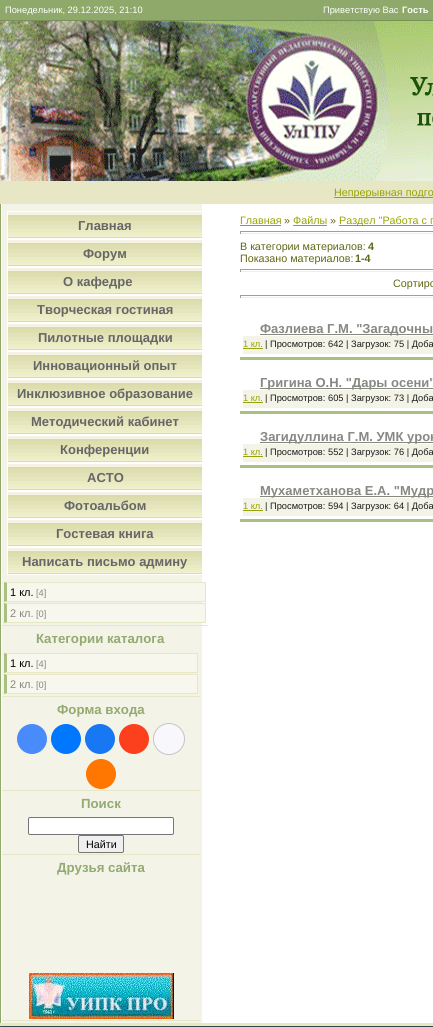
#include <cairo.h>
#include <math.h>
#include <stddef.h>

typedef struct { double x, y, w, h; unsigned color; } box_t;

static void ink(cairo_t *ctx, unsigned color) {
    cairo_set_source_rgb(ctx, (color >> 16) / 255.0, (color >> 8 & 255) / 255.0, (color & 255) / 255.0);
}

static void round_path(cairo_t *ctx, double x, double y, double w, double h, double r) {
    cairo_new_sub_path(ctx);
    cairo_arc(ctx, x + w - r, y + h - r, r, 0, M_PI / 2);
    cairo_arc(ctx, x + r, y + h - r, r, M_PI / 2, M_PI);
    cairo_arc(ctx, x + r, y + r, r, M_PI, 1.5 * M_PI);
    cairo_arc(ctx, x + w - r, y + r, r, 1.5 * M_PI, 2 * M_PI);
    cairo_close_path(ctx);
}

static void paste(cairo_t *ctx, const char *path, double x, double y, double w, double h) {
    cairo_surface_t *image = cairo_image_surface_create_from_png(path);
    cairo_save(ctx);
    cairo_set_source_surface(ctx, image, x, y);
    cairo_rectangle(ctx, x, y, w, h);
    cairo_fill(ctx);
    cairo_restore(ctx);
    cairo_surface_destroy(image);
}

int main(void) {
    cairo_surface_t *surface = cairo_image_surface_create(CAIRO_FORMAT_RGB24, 433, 1027);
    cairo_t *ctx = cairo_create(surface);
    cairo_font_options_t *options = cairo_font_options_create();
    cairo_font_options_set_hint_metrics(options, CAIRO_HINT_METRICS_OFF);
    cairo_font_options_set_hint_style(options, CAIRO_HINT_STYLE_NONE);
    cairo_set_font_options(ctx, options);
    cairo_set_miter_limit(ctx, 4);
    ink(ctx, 0xE7E7C5);
    cairo_paint(ctx);
    ink(ctx, 0x8EA969);
    cairo_rectangle(ctx, 0, 0, 433, 20);
    cairo_fill(ctx);
    ink(ctx, 0x799059);
    cairo_rectangle(ctx, 0, 20, 433, 1);
    cairo_fill(ctx);
    cairo_select_font_face(ctx, "Liberation Sans", CAIRO_FONT_SLANT_NORMAL, CAIRO_FONT_WEIGHT_NORMAL);
    cairo_set_font_size(ctx, 9.3);
    ink(ctx, 0xFFFFFF);
    cairo_move_to(ctx, 5, 13);
    cairo_show_text(ctx, "Понедельник, 29.12.2025, 21:10");
    cairo_move_to(ctx, 323, 13);
    cairo_show_text(ctx, "Приветствую Вас");
    cairo_select_font_face(ctx, "Liberation Sans", CAIRO_FONT_SLANT_NORMAL, CAIRO_FONT_WEIGHT_BOLD);
    cairo_move_to(ctx, 402, 13);
    cairo_show_text(ctx, "Гость");
    paste(ctx, "media/1.png", 0, 21, 433, 160);
    ink(ctx, 0x97A408);
    cairo_rectangle(ctx, 334, 197, 99, 1);
    cairo_fill(ctx);
    cairo_select_font_face(ctx, "Liberation Sans", CAIRO_FONT_SLANT_NORMAL, CAIRO_FONT_WEIGHT_NORMAL);
    cairo_set_font_size(ctx, 10.75);
    cairo_move_to(ctx, 334, 196);
    cairo_show_text(ctx, "Непрерывная подго");
    paste(ctx, "media/2.png", 0, 204, 433, 819);
    paste(ctx, "media/3.png", 8, 212, 194, 26);
    cairo_rectangle(ctx, 7.5, 211.5, 195, 27);
    ink(ctx, 0xFFFFFF);
    cairo_set_line_width(ctx, 1);
    cairo_stroke(ctx);
    cairo_select_font_face(ctx, "Liberation Sans", CAIRO_FONT_SLANT_NORMAL, CAIRO_FONT_WEIGHT_BOLD);
    cairo_set_font_size(ctx, 13);
    ink(ctx, 0x666666);
    cairo_move_to(ctx, 78, 230);
    cairo_show_text(ctx, "Главная");
    paste(ctx, "media/3.png", 8, 240, 194, 26);
    cairo_rectangle(ctx, 7.5, 239.5, 195, 27);
    ink(ctx, 0xFFFFFF);
    cairo_stroke(ctx);
    ink(ctx, 0x666666);
    cairo_move_to(ctx, 83, 258);
    cairo_show_text(ctx, "Форум");
    paste(ctx, "media/3.png", 8, 268, 194, 26);
    cairo_rectangle(ctx, 7.5, 267.5, 195, 27);
    ink(ctx, 0xFFFFFF);
    cairo_stroke(ctx);
    ink(ctx, 0x666666);
    cairo_move_to(ctx, 63, 286);
    cairo_show_text(ctx, "О кафедре");
    paste(ctx, "media/3.png", 8, 296, 194, 26);
    cairo_rectangle(ctx, 7.5, 295.5, 195, 27);
    ink(ctx, 0xFFFFFF);
    cairo_stroke(ctx);
    ink(ctx, 0x666666);
    cairo_move_to(ctx, 37, 314);
    cairo_show_text(ctx, "Творческая гостиная");
    paste(ctx, "media/3.png", 8, 324, 194, 26);
    cairo_rectangle(ctx, 7.5, 323.5, 195, 27);
    ink(ctx, 0xFFFFFF);
    cairo_stroke(ctx);
    ink(ctx, 0x666666);
    cairo_move_to(ctx, 38, 342);
    cairo_show_text(ctx, "Пилотные площадки");
    paste(ctx, "media/3.png", 8, 352, 194, 26);
    cairo_rectangle(ctx, 7.5, 351.5, 195, 27);
    ink(ctx, 0xFFFFFF);
    cairo_stroke(ctx);
    ink(ctx, 0x666666);
    cairo_move_to(ctx, 33, 370);
    cairo_show_text(ctx, "Инновационный опыт");
    paste(ctx, "media/3.png", 8, 380, 194, 26);
    cairo_rectangle(ctx, 7.5, 379.5, 195, 27);
    ink(ctx, 0xFFFFFF);
    cairo_stroke(ctx);
    ink(ctx, 0x666666);
    cairo_move_to(ctx, 17, 398);
    cairo_show_text(ctx, "Инклюзивное образование");
    paste(ctx, "media/3.png", 8, 408, 194, 26);
    cairo_rectangle(ctx, 7.5, 407.5, 195, 27);
    ink(ctx, 0xFFFFFF);
    cairo_stroke(ctx);
    ink(ctx, 0x666666);
    cairo_move_to(ctx, 31, 426);
    cairo_show_text(ctx, "Методический кабинет");
    paste(ctx, "media/3.png", 8, 436, 194, 26);
    cairo_rectangle(ctx, 7.5, 435.5, 195, 27);
    ink(ctx, 0xFFFFFF);
    cairo_stroke(ctx);
    ink(ctx, 0x666666);
    cairo_move_to(ctx, 60, 454);
    cairo_show_text(ctx, "Конференции");
    paste(ctx, "media/3.png", 8, 464, 194, 26);
    cairo_rectangle(ctx, 7.5, 463.5, 195, 27);
    ink(ctx, 0xFFFFFF);
    cairo_stroke(ctx);
    ink(ctx, 0x666666);
    cairo_move_to(ctx, 87, 482);
    cairo_show_text(ctx, "АСТО");
    paste(ctx, "media/3.png", 8, 492, 194, 26);
    cairo_rectangle(ctx, 7.5, 491.5, 195, 27);
    ink(ctx, 0xFFFFFF);
    cairo_stroke(ctx);
    ink(ctx, 0x666666);
    cairo_move_to(ctx, 64, 510);
    cairo_show_text(ctx, "Фотоальбом");
    paste(ctx, "media/3.png", 8, 520, 194, 26);
    cairo_rectangle(ctx, 7.5, 519.5, 195, 27);
    ink(ctx, 0xFFFFFF);
    cairo_stroke(ctx);
    ink(ctx, 0x666666);
    cairo_move_to(ctx, 56, 538);
    cairo_show_text(ctx, "Гостевая книга");
    paste(ctx, "media/3.png", 8, 548, 194, 26);
    cairo_rectangle(ctx, 7.5, 547.5, 195, 27);
    ink(ctx, 0xFFFFFF);
    cairo_stroke(ctx);
    ink(ctx, 0x666666);
    cairo_move_to(ctx, 22, 566);
    cairo_show_text(ctx, "Написать письмо админу");
    ink(ctx, 0xE7E7C5);
    cairo_rectangle(ctx, 2, 625, 206, 1);
    cairo_fill(ctx);
    ink(ctx, 0xF7F7ED);
    cairo_rectangle(ctx, 7, 583, 198, 18);
    cairo_fill(ctx);
    ink(ctx, 0xE7E7C5);
    cairo_new_path(ctx);
    cairo_move_to(ctx, 4, 582);
    cairo_line_to(ctx, 206, 582);
    cairo_line_to(ctx, 205, 583);
    cairo_line_to(ctx, 7, 583);
    cairo_close_path(ctx);
    cairo_fill(ctx);
    cairo_rectangle(ctx, 205, 582, 1, 20);
    cairo_fill(ctx);
    cairo_new_path(ctx);
    cairo_move_to(ctx, 206, 602);
    cairo_line_to(ctx, 4, 602);
    cairo_line_to(ctx, 7, 601);
    cairo_line_to(ctx, 205, 601);
    cairo_close_path(ctx);
    cairo_fill(ctx);
    ink(ctx, 0xA8C081);
    cairo_new_path(ctx);
    cairo_move_to(ctx, 4, 602);
    cairo_line_to(ctx, 4, 582);
    cairo_line_to(ctx, 7, 583);
    cairo_line_to(ctx, 7, 601);
    cairo_close_path(ctx);
    cairo_fill(ctx);
    cairo_select_font_face(ctx, "Liberation Sans", CAIRO_FONT_SLANT_NORMAL, CAIRO_FONT_WEIGHT_NORMAL);
    cairo_set_font_size(ctx, 11);
    ink(ctx, 0x000000);
    cairo_move_to(ctx, 10, 596);
    cairo_show_text(ctx, "1 кл.");
    cairo_set_font_size(ctx, 9.3);
    ink(ctx, 0x868882);
    cairo_move_to(ctx, 36, 596);
    cairo_show_text(ctx, "[4]");
    ink(ctx, 0xF7F7ED);
    cairo_rectangle(ctx, 7, 604, 198, 18);
    cairo_fill(ctx);
    ink(ctx, 0xE7E7C5);
    cairo_new_path(ctx);
    cairo_move_to(ctx, 4, 603);
    cairo_line_to(ctx, 206, 603);
    cairo_line_to(ctx, 205, 604);
    cairo_line_to(ctx, 7, 604);
    cairo_close_path(ctx);
    cairo_fill(ctx);
    cairo_rectangle(ctx, 205, 603, 1, 20);
    cairo_fill(ctx);
    cairo_new_path(ctx);
    cairo_move_to(ctx, 206, 623);
    cairo_line_to(ctx, 4, 623);
    cairo_line_to(ctx, 7, 622);
    cairo_line_to(ctx, 205, 622);
    cairo_close_path(ctx);
    cairo_fill(ctx);
    ink(ctx, 0xA8C081);
    cairo_new_path(ctx);
    cairo_move_to(ctx, 4, 623);
    cairo_line_to(ctx, 4, 603);
    cairo_line_to(ctx, 7, 604);
    cairo_line_to(ctx, 7, 622);
    cairo_close_path(ctx);
    cairo_fill(ctx);
    cairo_set_font_size(ctx, 11);
    ink(ctx, 0x868882);
    cairo_move_to(ctx, 10, 617);
    cairo_show_text(ctx, "2 кл.");
    cairo_set_font_size(ctx, 9.3);
    cairo_move_to(ctx, 36, 617);
    cairo_show_text(ctx, "[0]");
    cairo_select_font_face(ctx, "Liberation Sans", CAIRO_FONT_SLANT_NORMAL, CAIRO_FONT_WEIGHT_BOLD);
    cairo_set_font_size(ctx, 13.25);
    ink(ctx, 0x93AA70);
    cairo_move_to(ctx, 36, 643);
    cairo_show_text(ctx, "Категории каталога");
    ink(ctx, 0xE7E7C5);
    cairo_rectangle(ctx, 2, 696, 198, 1);
    cairo_fill(ctx);
    ink(ctx, 0xF7F7ED);
    cairo_rectangle(ctx, 7, 654, 190, 18);
    cairo_fill(ctx);
    ink(ctx, 0xE7E7C5);
    cairo_new_path(ctx);
    cairo_move_to(ctx, 4, 653);
    cairo_line_to(ctx, 198, 653);
    cairo_line_to(ctx, 197, 654);
    cairo_line_to(ctx, 7, 654);
    cairo_close_path(ctx);
    cairo_fill(ctx);
    cairo_rectangle(ctx, 197, 653, 1, 20);
    cairo_fill(ctx);
    cairo_new_path(ctx);
    cairo_move_to(ctx, 198, 673);
    cairo_line_to(ctx, 4, 673);
    cairo_line_to(ctx, 7, 672);
    cairo_line_to(ctx, 197, 672);
    cairo_close_path(ctx);
    cairo_fill(ctx);
    ink(ctx, 0xA8C081);
    cairo_new_path(ctx);
    cairo_move_to(ctx, 4, 673);
    cairo_line_to(ctx, 4, 653);
    cairo_line_to(ctx, 7, 654);
    cairo_line_to(ctx, 7, 672);
    cairo_close_path(ctx);
    cairo_fill(ctx);
    cairo_select_font_face(ctx, "Liberation Sans", CAIRO_FONT_SLANT_NORMAL, CAIRO_FONT_WEIGHT_NORMAL);
    cairo_set_font_size(ctx, 11);
    ink(ctx, 0x000000);
    cairo_move_to(ctx, 10, 667);
    cairo_show_text(ctx, "1 кл.");
    cairo_set_font_size(ctx, 9.3);
    ink(ctx, 0x868882);
    cairo_move_to(ctx, 36, 667);
    cairo_show_text(ctx, "[4]");
    ink(ctx, 0xF7F7ED);
    cairo_rectangle(ctx, 7, 675, 190, 18);
    cairo_fill(ctx);
    ink(ctx, 0xE7E7C5);
    cairo_new_path(ctx);
    cairo_move_to(ctx, 4, 674);
    cairo_line_to(ctx, 198, 674);
    cairo_line_to(ctx, 197, 675);
    cairo_line_to(ctx, 7, 675);
    cairo_close_path(ctx);
    cairo_fill(ctx);
    cairo_rectangle(ctx, 197, 674, 1, 20);
    cairo_fill(ctx);
    cairo_new_path(ctx);
    cairo_move_to(ctx, 198, 694);
    cairo_line_to(ctx, 4, 694);
    cairo_line_to(ctx, 7, 693);
    cairo_line_to(ctx, 197, 693);
    cairo_close_path(ctx);
    cairo_fill(ctx);
    ink(ctx, 0xA8C081);
    cairo_new_path(ctx);
    cairo_move_to(ctx, 4, 694);
    cairo_line_to(ctx, 4, 674);
    cairo_line_to(ctx, 7, 675);
    cairo_line_to(ctx, 7, 693);
    cairo_close_path(ctx);
    cairo_fill(ctx);
    cairo_set_font_size(ctx, 11);
    ink(ctx, 0x868882);
    cairo_move_to(ctx, 10, 688);
    cairo_show_text(ctx, "2 кл.");
    cairo_set_font_size(ctx, 9.3);
    cairo_move_to(ctx, 36, 688);
    cairo_show_text(ctx, "[0]");
    cairo_select_font_face(ctx, "Liberation Sans", CAIRO_FONT_SLANT_NORMAL, CAIRO_FONT_WEIGHT_BOLD);
    cairo_set_font_size(ctx, 13.25);
    ink(ctx, 0x93AA70);
    cairo_move_to(ctx, 57, 714);
    cairo_show_text(ctx, "Форма входа");
    ink(ctx, 0xE7E7C5);
    cairo_rectangle(ctx, 2, 790, 198, 1);
    cairo_fill(ctx);
    ink(ctx, 0x498BFA);
    cairo_arc(ctx, 32, 739, 15, 0, 2 * M_PI);
    cairo_fill(ctx);
    ink(ctx, 0x0077FF);
    cairo_arc(ctx, 66, 739, 15, 0, 2 * M_PI);
    cairo_fill(ctx);
    ink(ctx, 0x1877F2);
    cairo_arc(ctx, 100, 739, 15, 0, 2 * M_PI);
    cairo_fill(ctx);
    ink(ctx, 0xFC3F1D);
    cairo_arc(ctx, 134, 739, 15, 0, 2 * M_PI);
    cairo_fill(ctx);
    ink(ctx, 0xF8F8FC);
    cairo_arc(ctx, 169, 739, 15.5, 0, 2 * M_PI);
    cairo_fill_preserve(ctx);
    ink(ctx, 0xC4C4C4);
    cairo_stroke(ctx);
    ink(ctx, 0xFF7700);
    cairo_arc(ctx, 101, 774, 15, 0, 2 * M_PI);
    cairo_fill(ctx);
    ink(ctx, 0x93AA70);
    cairo_move_to(ctx, 81, 808);
    cairo_show_text(ctx, "Поиск");
    ink(ctx, 0xE7E7C5);
    cairo_rectangle(ctx, 2, 854, 198, 1);
    cairo_fill(ctx);
    ink(ctx, 0xFFFFFF);
    round_path(ctx, 28.5, 817.5, 145, 17, 1.5);
    cairo_fill_preserve(ctx);
    ink(ctx, 0x767676);
    cairo_stroke(ctx);
    ink(ctx, 0xEFEFEF);
    round_path(ctx, 78.5, 835.5, 45, 17, 1.5);
    cairo_fill_preserve(ctx);
    ink(ctx, 0x767676);
    cairo_stroke(ctx);
    cairo_select_font_face(ctx, "Liberation Sans", CAIRO_FONT_SLANT_NORMAL, CAIRO_FONT_WEIGHT_NORMAL);
    cairo_set_font_size(ctx, 10.75);
    ink(ctx, 0x000000);
    cairo_move_to(ctx, 86, 848);
    cairo_show_text(ctx, "Найти");
    cairo_select_font_face(ctx, "Liberation Sans", CAIRO_FONT_SLANT_NORMAL, CAIRO_FONT_WEIGHT_BOLD);
    cairo_set_font_size(ctx, 13.25);
    ink(ctx, 0x93AA70);
    cairo_move_to(ctx, 57, 872);
    cairo_show_text(ctx, "Друзья сайта");
    ink(ctx, 0xE7E7C5);
    cairo_rectangle(ctx, 2, 1020, 198, 1);
    cairo_fill(ctx);
    paste(ctx, "media/4.png", 29, 973, 145, 46);
    cairo_select_font_face(ctx, "Liberation Sans", CAIRO_FONT_SLANT_NORMAL, CAIRO_FONT_WEIGHT_NORMAL);
    cairo_set_font_size(ctx, 10.75);
    ink(ctx, 0x97A408);
    cairo_move_to(ctx, 240, 224);
    cairo_show_text(ctx, "Главная");
    cairo_rectangle(ctx, 240, 225, 41, 1);
    cairo_fill(ctx);
    ink(ctx, 0x606615);
    cairo_move_to(ctx, 284, 224);
    cairo_show_text(ctx, "»");
    ink(ctx, 0x97A408);
    cairo_move_to(ctx, 293, 224);
    cairo_show_text(ctx, "Файлы");
    cairo_rectangle(ctx, 293, 225, 34, 1);
    cairo_fill(ctx);
    ink(ctx, 0x606615);
    cairo_move_to(ctx, 330, 224);
    cairo_show_text(ctx, "»");
    ink(ctx, 0x97A408);
    cairo_rectangle(ctx, 339, 225, 94, 1);
    cairo_fill(ctx);
    cairo_move_to(ctx, 339, 224);
    cairo_show_text(ctx, "Раздел \"Работа с п");
    {
        static const box_t items[] = {
            {240, 231, 193, 1, 0x9F9F9F},
            {240, 233, 193, 1, 0xEEEEEE},
            {240, 231, 1, 3, 0x9F9F9F},
        };
        for (size_t i = 0; i < sizeof items / sizeof *items; i++) {
            ink(ctx, items[i].color);
            cairo_rectangle(ctx, items[i].x, items[i].y, items[i].w, items[i].h);
            cairo_fill(ctx);
        }
    }
    ink(ctx, 0x606615);
    cairo_move_to(ctx, 240, 250);
    cairo_show_text(ctx, "В категории материалов:");
    cairo_select_font_face(ctx, "Liberation Sans", CAIRO_FONT_SLANT_NORMAL, CAIRO_FONT_WEIGHT_BOLD);
    cairo_move_to(ctx, 368, 250);
    cairo_show_text(ctx, "4");
    cairo_select_font_face(ctx, "Liberation Sans", CAIRO_FONT_SLANT_NORMAL, CAIRO_FONT_WEIGHT_NORMAL);
    cairo_move_to(ctx, 240, 262);
    cairo_show_text(ctx, "Показано материалов:");
    cairo_select_font_face(ctx, "Liberation Sans", CAIRO_FONT_SLANT_NORMAL, CAIRO_FONT_WEIGHT_BOLD);
    cairo_move_to(ctx, 355, 262);
    cairo_show_text(ctx, "1-4");
    {
        static const box_t items[] = {
            {240, 269, 193, 1, 0x9F9F9F},
            {240, 271, 193, 1, 0xEEEEEE},
            {240, 269, 1, 3, 0x9F9F9F},
        };
        for (size_t i = 0; i < sizeof items / sizeof *items; i++) {
            ink(ctx, items[i].color);
            cairo_rectangle(ctx, items[i].x, items[i].y, items[i].w, items[i].h);
            cairo_fill(ctx);
        }
    }
    cairo_select_font_face(ctx, "Liberation Sans", CAIRO_FONT_SLANT_NORMAL, CAIRO_FONT_WEIGHT_NORMAL);
    ink(ctx, 0x606615);
    cairo_move_to(ctx, 393, 287);
    cairo_show_text(ctx, "Сортиро");
    {
        static const box_t items[] = {
            {240, 295, 193, 1, 0x9F9F9F},
            {240, 297, 193, 1, 0xEEEEEE},
            {240, 295, 1, 3, 0x9F9F9F},
            {240, 357, 193, 3, 0xA8C081},
            {260, 334, 173, 1, 0x868882},
        };
        for (size_t i = 0; i < sizeof items / sizeof *items; i++) {
            ink(ctx, items[i].color);
            cairo_rectangle(ctx, items[i].x, items[i].y, items[i].w, items[i].h);
            cairo_fill(ctx);
        }
    }
    cairo_select_font_face(ctx, "Liberation Sans", CAIRO_FONT_SLANT_NORMAL, CAIRO_FONT_WEIGHT_BOLD);
    cairo_set_font_size(ctx, 13);
    cairo_move_to(ctx, 260, 333);
    cairo_show_text(ctx, "Фазлиева Г.М. \"Загадочны");
    ink(ctx, 0xF3F3E7);
    cairo_rectangle(ctx, 243, 336, 190, 18);
    cairo_fill(ctx);
    cairo_select_font_face(ctx, "Liberation Sans", CAIRO_FONT_SLANT_NORMAL, CAIRO_FONT_WEIGHT_NORMAL);
    cairo_set_font_size(ctx, 9.3);
    ink(ctx, 0x97A408);
    cairo_move_to(ctx, 243, 347);
    cairo_show_text(ctx, "1 кл.");
    cairo_rectangle(ctx, 243, 348, 20, 1);
    cairo_fill(ctx);
    ink(ctx, 0x1A1A1A);
    cairo_move_to(ctx, 265, 347);
    cairo_show_text(ctx, "| Просмотров: 642 | Загрузок: 75 | Доба");
    ink(ctx, 0xA8C081);
    cairo_rectangle(ctx, 240, 411, 193, 3);
    cairo_fill(ctx);
    ink(ctx, 0x868882);
    cairo_rectangle(ctx, 260, 388, 173, 1);
    cairo_fill(ctx);
    cairo_select_font_face(ctx, "Liberation Sans", CAIRO_FONT_SLANT_NORMAL, CAIRO_FONT_WEIGHT_BOLD);
    cairo_set_font_size(ctx, 13);
    cairo_move_to(ctx, 260, 387);
    cairo_show_text(ctx, "Григина О.Н. \"Дары осени\"");
    ink(ctx, 0xF3F3E7);
    cairo_rectangle(ctx, 243, 390, 190, 18);
    cairo_fill(ctx);
    cairo_select_font_face(ctx, "Liberation Sans", CAIRO_FONT_SLANT_NORMAL, CAIRO_FONT_WEIGHT_NORMAL);
    cairo_set_font_size(ctx, 9.3);
    ink(ctx, 0x97A408);
    cairo_move_to(ctx, 243, 401);
    cairo_show_text(ctx, "1 кл.");
    cairo_rectangle(ctx, 243, 402, 20, 1);
    cairo_fill(ctx);
    ink(ctx, 0x1A1A1A);
    cairo_move_to(ctx, 265, 401);
    cairo_show_text(ctx, "| Просмотров: 605 | Загрузок: 73 | Доба");
    ink(ctx, 0xA8C081);
    cairo_rectangle(ctx, 240, 465, 193, 3);
    cairo_fill(ctx);
    ink(ctx, 0x868882);
    cairo_rectangle(ctx, 260, 442, 173, 1);
    cairo_fill(ctx);
    cairo_select_font_face(ctx, "Liberation Sans", CAIRO_FONT_SLANT_NORMAL, CAIRO_FONT_WEIGHT_BOLD);
    cairo_set_font_size(ctx, 13);
    cairo_move_to(ctx, 260, 441);
    cairo_show_text(ctx, "Загидуллина Г.М. УМК урок");
    ink(ctx, 0xF3F3E7);
    cairo_rectangle(ctx, 243, 444, 190, 18);
    cairo_fill(ctx);
    cairo_select_font_face(ctx, "Liberation Sans", CAIRO_FONT_SLANT_NORMAL, CAIRO_FONT_WEIGHT_NORMAL);
    cairo_set_font_size(ctx, 9.3);
    ink(ctx, 0x97A408);
    cairo_move_to(ctx, 243, 455);
    cairo_show_text(ctx, "1 кл.");
    cairo_rectangle(ctx, 243, 456, 20, 1);
    cairo_fill(ctx);
    ink(ctx, 0x1A1A1A);
    cairo_move_to(ctx, 265, 455);
    cairo_show_text(ctx, "| Просмотров: 552 | Загрузок: 76 | Доба");
    ink(ctx, 0xA8C081);
    cairo_rectangle(ctx, 240, 519, 193, 3);
    cairo_fill(ctx);
    ink(ctx, 0x868882);
    cairo_rectangle(ctx, 260, 496, 173, 1);
    cairo_fill(ctx);
    cairo_select_font_face(ctx, "Liberation Sans", CAIRO_FONT_SLANT_NORMAL, CAIRO_FONT_WEIGHT_BOLD);
    cairo_set_font_size(ctx, 13);
    cairo_move_to(ctx, 260, 495);
    cairo_show_text(ctx, "Мухаметханова Е.А. \"Мудр");
    ink(ctx, 0xF3F3E7);
    cairo_rectangle(ctx, 243, 498, 190, 18);
    cairo_fill(ctx);
    cairo_select_font_face(ctx, "Liberation Sans", CAIRO_FONT_SLANT_NORMAL, CAIRO_FONT_WEIGHT_NORMAL);
    cairo_set_font_size(ctx, 9.3);
    ink(ctx, 0x97A408);
    cairo_move_to(ctx, 243, 509);
    cairo_show_text(ctx, "1 кл.");
    cairo_rectangle(ctx, 243, 510, 20, 1);
    cairo_fill(ctx);
    ink(ctx, 0x1A1A1A);
    cairo_move_to(ctx, 265, 509);
    cairo_show_text(ctx, "| Просмотров: 594 | Загрузок: 64 | Доба");
    paste(ctx, "media/5.png", 0, 1026, 433, 1);
    cairo_surface_write_to_png(surface, "image.png");
    cairo_font_options_destroy(options);
    cairo_destroy(ctx);
    cairo_surface_destroy(surface);
    return 0;
}
